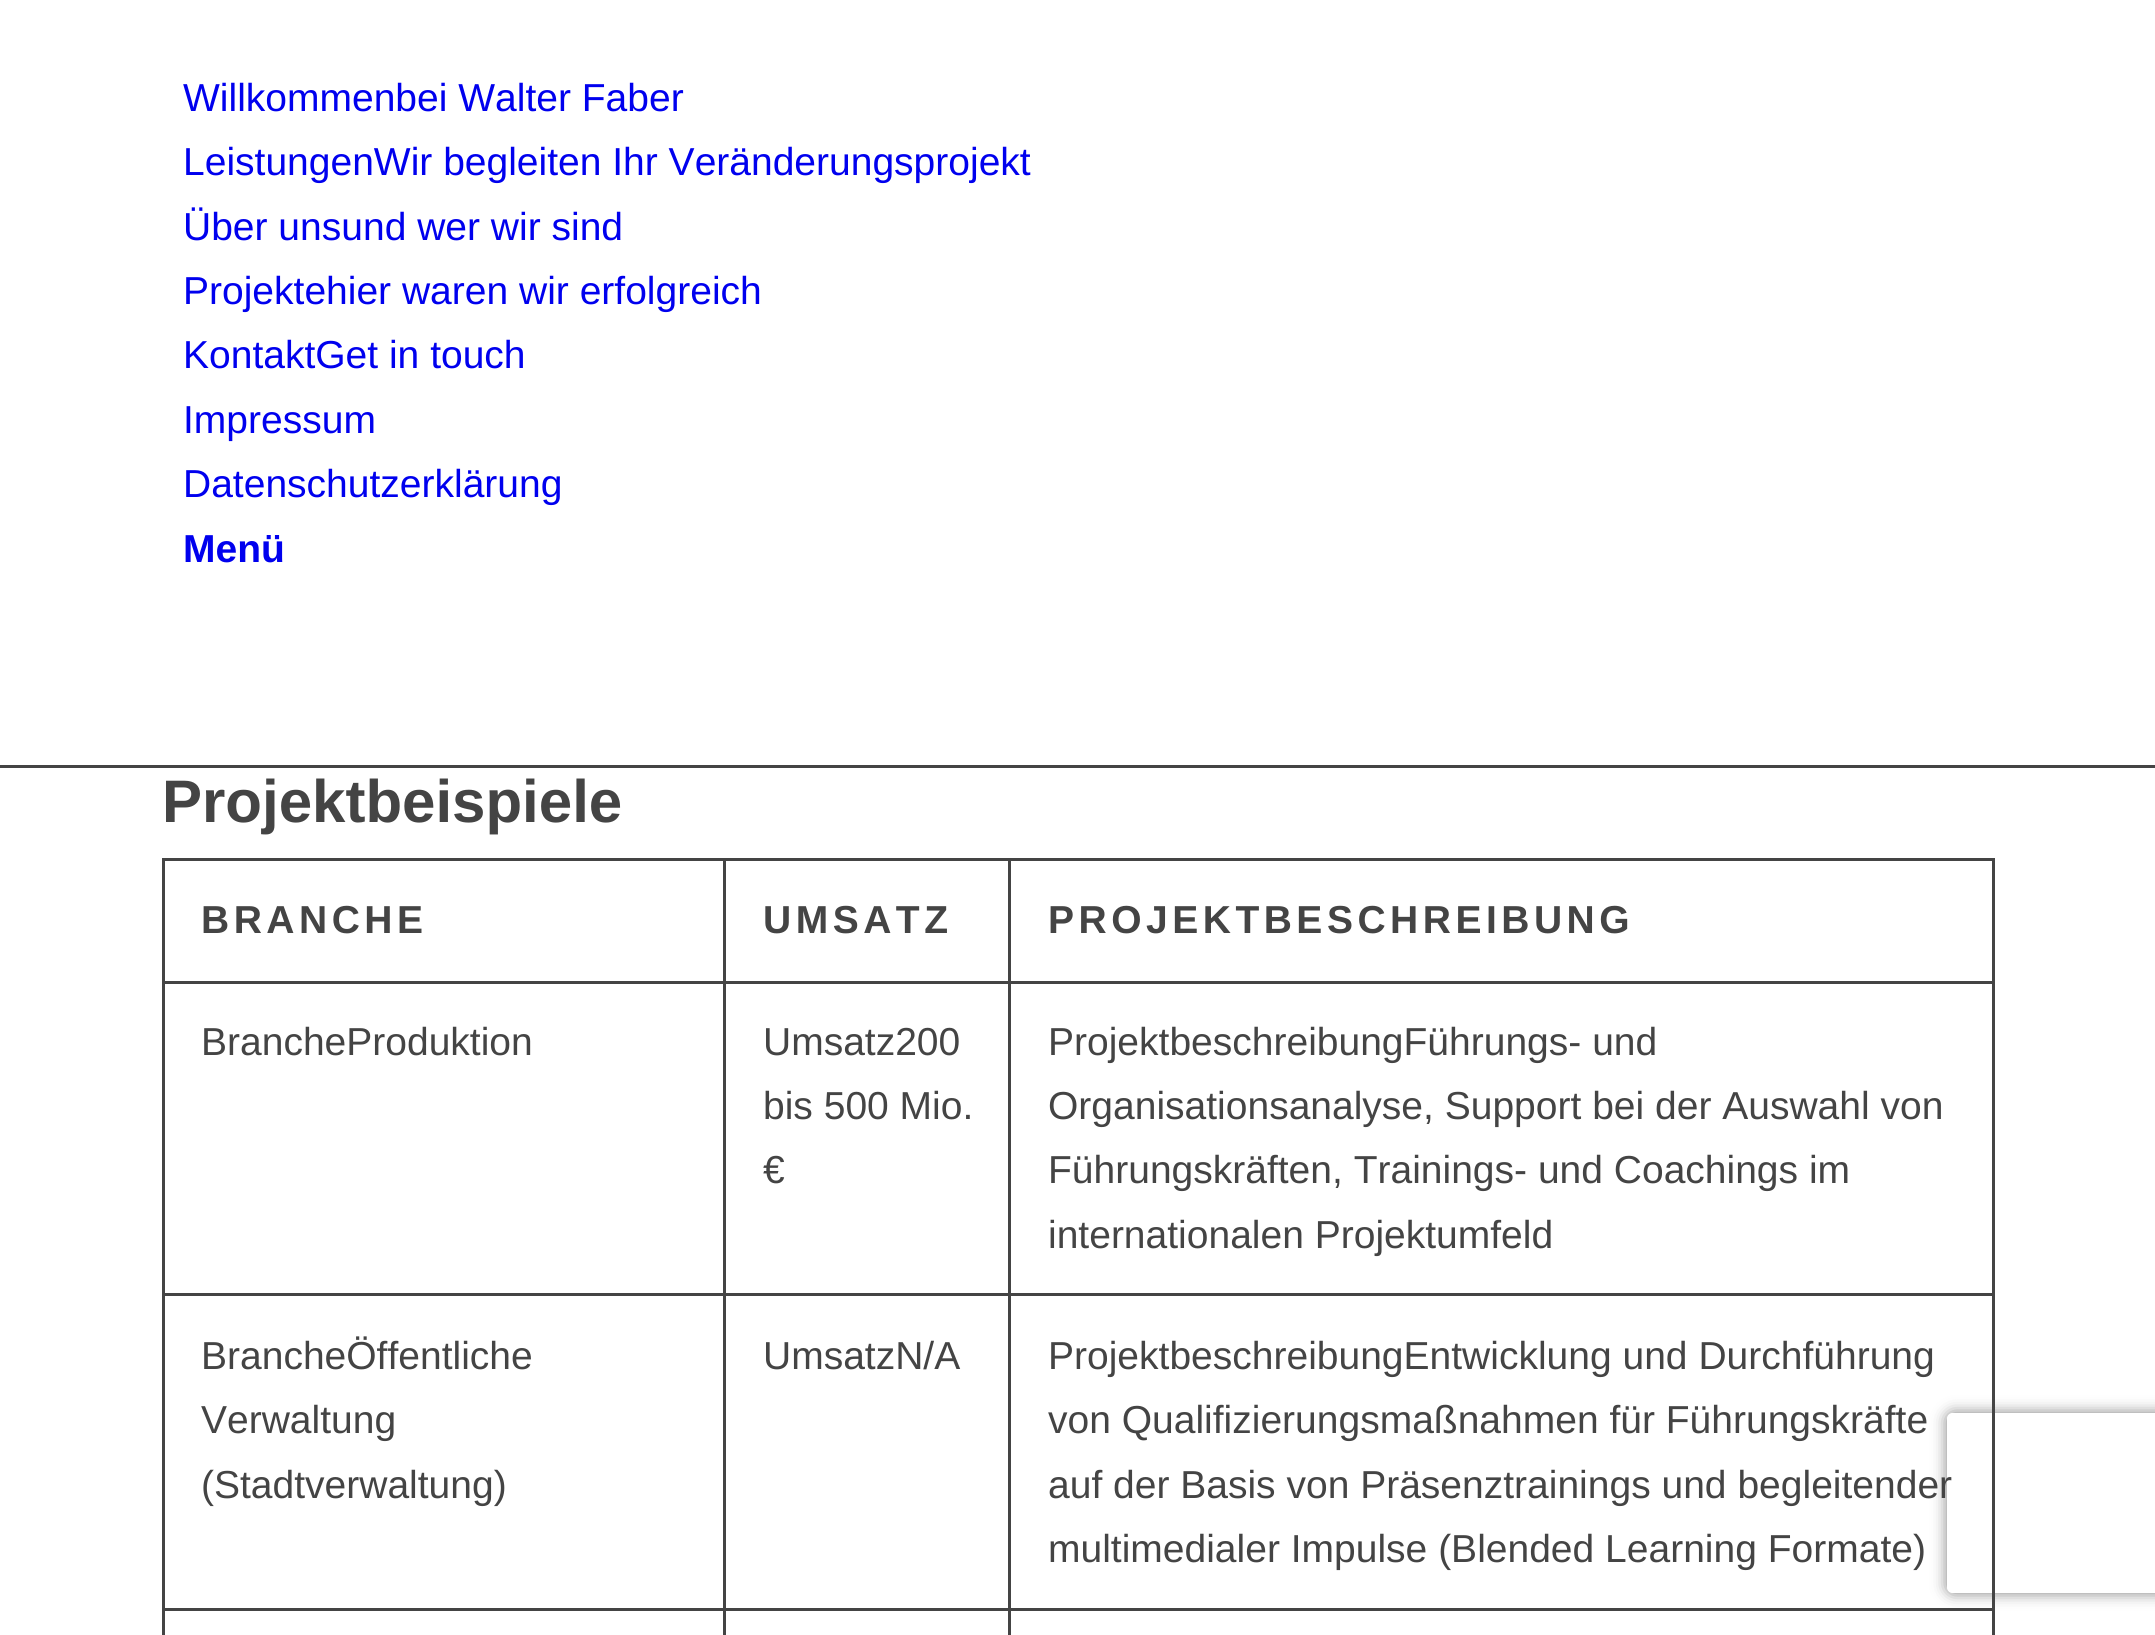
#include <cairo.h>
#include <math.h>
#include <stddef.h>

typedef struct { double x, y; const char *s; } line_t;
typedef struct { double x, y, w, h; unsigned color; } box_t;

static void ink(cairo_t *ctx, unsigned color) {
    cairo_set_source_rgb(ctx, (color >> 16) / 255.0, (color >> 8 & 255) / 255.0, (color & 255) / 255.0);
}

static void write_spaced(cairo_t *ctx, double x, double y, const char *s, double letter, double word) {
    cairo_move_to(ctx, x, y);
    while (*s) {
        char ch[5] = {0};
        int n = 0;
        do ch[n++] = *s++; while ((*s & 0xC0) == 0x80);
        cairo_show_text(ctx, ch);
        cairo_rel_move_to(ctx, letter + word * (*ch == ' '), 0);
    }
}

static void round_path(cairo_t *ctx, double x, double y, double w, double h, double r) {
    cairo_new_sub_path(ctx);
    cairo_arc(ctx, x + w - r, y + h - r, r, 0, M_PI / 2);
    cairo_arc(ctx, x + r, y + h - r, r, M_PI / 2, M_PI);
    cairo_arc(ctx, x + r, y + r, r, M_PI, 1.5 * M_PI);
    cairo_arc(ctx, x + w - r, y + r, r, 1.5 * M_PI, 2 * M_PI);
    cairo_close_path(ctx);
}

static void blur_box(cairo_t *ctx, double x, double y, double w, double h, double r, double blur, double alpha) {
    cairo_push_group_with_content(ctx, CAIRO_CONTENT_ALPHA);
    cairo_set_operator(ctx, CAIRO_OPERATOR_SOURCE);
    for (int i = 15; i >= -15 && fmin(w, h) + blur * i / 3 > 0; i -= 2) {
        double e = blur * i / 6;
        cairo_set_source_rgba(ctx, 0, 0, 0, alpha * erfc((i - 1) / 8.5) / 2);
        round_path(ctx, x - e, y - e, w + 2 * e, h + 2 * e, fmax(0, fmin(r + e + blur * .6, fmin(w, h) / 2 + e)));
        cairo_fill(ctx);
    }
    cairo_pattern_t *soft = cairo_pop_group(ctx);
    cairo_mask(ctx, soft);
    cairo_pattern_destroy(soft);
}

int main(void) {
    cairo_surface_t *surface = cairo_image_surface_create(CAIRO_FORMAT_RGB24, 2155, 1635);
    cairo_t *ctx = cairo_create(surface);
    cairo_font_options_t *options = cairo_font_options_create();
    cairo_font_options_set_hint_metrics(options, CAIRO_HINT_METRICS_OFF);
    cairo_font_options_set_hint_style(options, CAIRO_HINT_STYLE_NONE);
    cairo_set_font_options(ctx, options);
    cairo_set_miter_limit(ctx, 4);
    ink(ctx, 0xFFFFFF);
    cairo_paint(ctx);
    cairo_select_font_face(ctx, "Liberation Sans", CAIRO_FONT_SLANT_NORMAL, CAIRO_FONT_WEIGHT_NORMAL);
    cairo_set_font_size(ctx, 39);
    ink(ctx, 0x0000EE);
    {
        static const line_t items[] = {
            {183, 111, "Willkommenbei Walter Faber"},
            {183, 175, "LeistungenWir begleiten Ihr Veränderungsprojekt"},
            {183, 240, "Über unsund wer wir sind"},
            {183, 304, "Projektehier waren wir erfolgreich"},
            {183, 368, "KontaktGet in touch"},
            {183, 433, "Impressum"},
            {183, 497, "Datenschutzerklärung"},
        };
        for (size_t i = 0; i < sizeof items / sizeof *items; i++) {
            cairo_move_to(ctx, items[i].x, items[i].y);
            cairo_show_text(ctx, items[i].s);
        }
    }
    cairo_select_font_face(ctx, "Liberation Sans", CAIRO_FONT_SLANT_NORMAL, CAIRO_FONT_WEIGHT_BOLD);
    cairo_move_to(ctx, 183, 562);
    cairo_show_text(ctx, "Menü");
    ink(ctx, 0x444444);
    cairo_rectangle(ctx, 0, 765, 2155, 3);
    cairo_fill(ctx);
    cairo_set_font_size(ctx, 60);
    cairo_move_to(ctx, 162, 822);
    cairo_show_text(ctx, "Projektbeispiele");
    cairo_rectangle(ctx, 162, 858, 1833, 3);
    cairo_fill(ctx);
    cairo_save(ctx);
    cairo_set_fill_rule(ctx, CAIRO_FILL_RULE_EVEN_ODD);
    cairo_new_path(ctx);
    cairo_move_to(ctx, 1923, 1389);
    cairo_line_to(ctx, 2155, 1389);
    cairo_line_to(ctx, 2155, 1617);
    cairo_line_to(ctx, 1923, 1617);
    cairo_close_path(ctx);
    cairo_move_to(ctx, 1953, 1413);
    cairo_line_to(ctx, 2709, 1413);
    cairo_curve_to(ctx, 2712.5, 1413, 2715, 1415.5, 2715, 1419);
    cairo_line_to(ctx, 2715, 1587);
    cairo_curve_to(ctx, 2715, 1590.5, 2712.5, 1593, 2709, 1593);
    cairo_line_to(ctx, 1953, 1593);
    cairo_curve_to(ctx, 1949.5, 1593, 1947, 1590.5, 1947, 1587);
    cairo_line_to(ctx, 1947, 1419);
    cairo_curve_to(ctx, 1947, 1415.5, 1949.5, 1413, 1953, 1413);
    cairo_close_path(ctx);
    cairo_clip(ctx);
    ink(ctx, 0x808080);
    blur_box(ctx, 1947, 1413, 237, 180, 6, 7.5, 1);
    cairo_restore(ctx);
    {
        static const box_t items[] = {
            {1992, 981, 3, 654, 0x444444},
            {1992, 858, 3, 126, 0x444444},
            {1008, 1608, 3, 27, 0x444444},
            {1008, 1608, 987, 3, 0x444444},
            {1008, 1293, 3, 318, 0x444444},
            {1008, 1293, 987, 3, 0x444444},
            {1008, 981, 3, 315, 0x444444},
            {1008, 981, 987, 3, 0x444444},
            {1008, 858, 3, 126, 0x444444},
            {723, 1608, 3, 27, 0x444444},
            {723, 1608, 288, 3, 0x444444},
            {723, 1293, 3, 318, 0x444444},
            {723, 1293, 288, 3, 0x444444},
            {723, 981, 3, 315, 0x444444},
            {723, 981, 288, 3, 0x444444},
            {723, 858, 3, 126, 0x444444},
            {162, 1608, 3, 27, 0x444444},
            {162, 1608, 564, 3, 0x444444},
            {162, 1293, 3, 318, 0x444444},
            {162, 1293, 564, 3, 0x444444},
            {162, 981, 3, 315, 0x444444},
            {162, 981, 564, 3, 0x444444},
            {162, 858, 3, 126, 0x444444},
        };
        for (size_t i = 0; i < sizeof items / sizeof *items; i++) {
            ink(ctx, items[i].color);
            cairo_rectangle(ctx, items[i].x, items[i].y, items[i].w, items[i].h);
            cairo_fill(ctx);
        }
    }
    cairo_set_font_size(ctx, 39);
    {
        static const line_t items[] = {
            {201, 933, "BRANCHE"},
            {763, 933, "UMSATZ"},
            {1048, 933, "PROJEKTBESCHREIBUNG"},
        };
        for (size_t i = 0; i < sizeof items / sizeof *items; i++) {
            write_spaced(ctx, items[i].x, items[i].y, items[i].s, 4.5, 0);
        }
    }
    cairo_select_font_face(ctx, "Liberation Sans", CAIRO_FONT_SLANT_NORMAL, CAIRO_FONT_WEIGHT_NORMAL);
    {
        static const line_t items[] = {
            {201, 1055, "BrancheProduktion"},
            {763, 1055, "Umsatz200"},
            {763, 1119, "bis 500 Mio."},
            {763, 1183, "€"},
            {1048, 1055, "ProjektbeschreibungFührungs- und"},
            {1048, 1119, "Organisationsanalyse, Support bei der Auswahl von"},
            {1048, 1183, "Führungskräften, Trainings- und Coachings im"},
            {1048, 1248, "internationalen Projektumfeld"},
            {201, 1369, "BrancheÖffentliche"},
            {201, 1433, "Verwaltung"},
            {201, 1498, "(Stadtverwaltung)"},
            {763, 1369, "UmsatzN/A"},
            {1048, 1369, "ProjektbeschreibungEntwicklung und Durchführung"},
            {1048, 1433, "von Qualifizierungsmaßnahmen für Führungskräfte"},
            {1048, 1498, "auf der Basis von Präsenztrainings und begleitender"},
            {1048, 1562, "multimedialer Impulse (Blended Learning Formate)"},
        };
        for (size_t i = 0; i < sizeof items / sizeof *items; i++) {
            cairo_move_to(ctx, items[i].x, items[i].y);
            cairo_show_text(ctx, items[i].s);
        }
    }
    cairo_surface_write_to_png(surface, "image.png");
    cairo_font_options_destroy(options);
    cairo_destroy(ctx);
    cairo_surface_destroy(surface);
    return 0;
}
